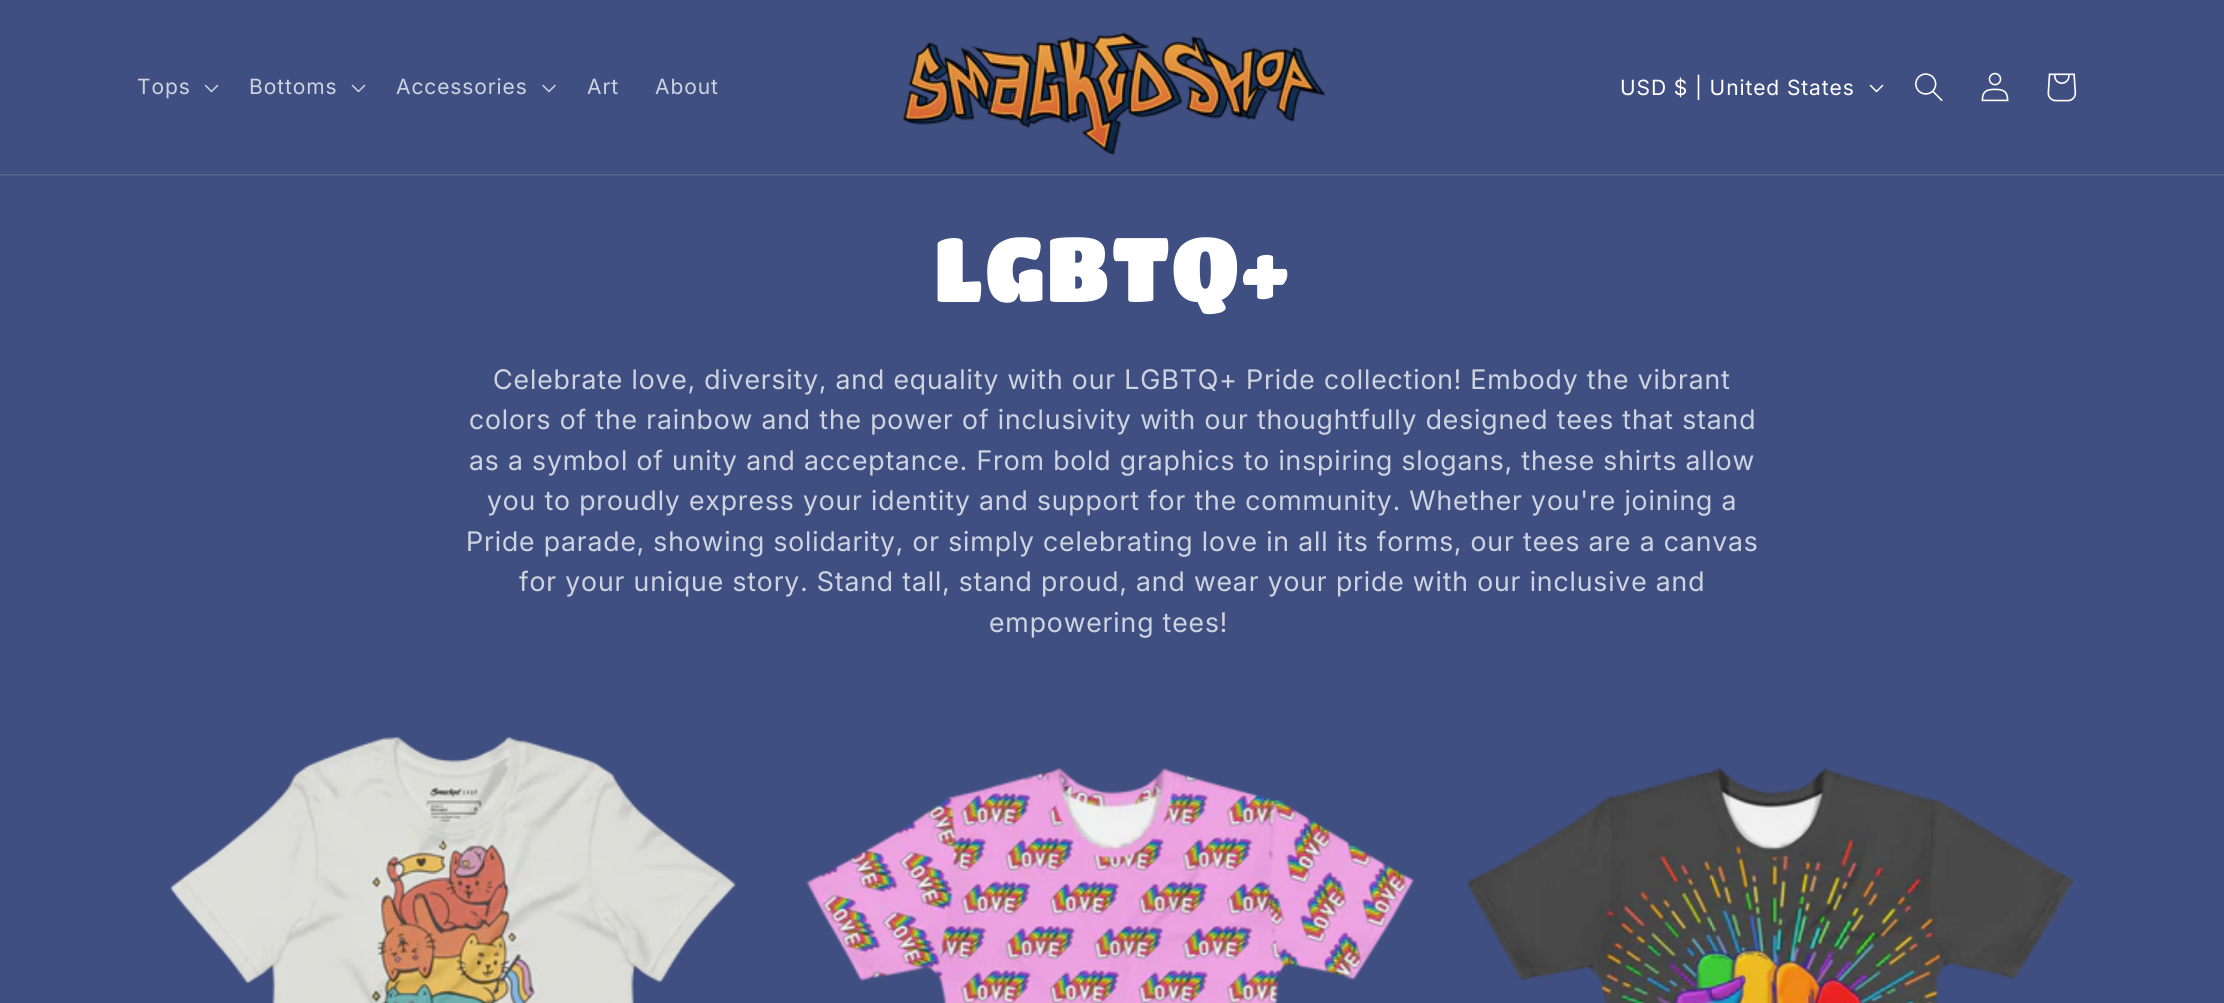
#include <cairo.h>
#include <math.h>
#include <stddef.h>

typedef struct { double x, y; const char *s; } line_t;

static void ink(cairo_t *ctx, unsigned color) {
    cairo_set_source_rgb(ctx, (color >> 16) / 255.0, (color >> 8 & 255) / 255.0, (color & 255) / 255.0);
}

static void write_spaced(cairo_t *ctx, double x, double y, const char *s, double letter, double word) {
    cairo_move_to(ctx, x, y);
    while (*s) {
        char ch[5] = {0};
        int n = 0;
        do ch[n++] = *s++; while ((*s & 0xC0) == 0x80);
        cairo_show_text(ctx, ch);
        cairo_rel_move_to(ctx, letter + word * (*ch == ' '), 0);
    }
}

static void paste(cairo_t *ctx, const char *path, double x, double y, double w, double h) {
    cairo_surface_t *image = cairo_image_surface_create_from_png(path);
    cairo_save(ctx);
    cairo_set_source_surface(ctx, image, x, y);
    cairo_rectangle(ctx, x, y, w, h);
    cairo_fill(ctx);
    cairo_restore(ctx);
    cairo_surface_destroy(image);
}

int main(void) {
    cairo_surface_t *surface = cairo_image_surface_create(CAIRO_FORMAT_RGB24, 2224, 1003);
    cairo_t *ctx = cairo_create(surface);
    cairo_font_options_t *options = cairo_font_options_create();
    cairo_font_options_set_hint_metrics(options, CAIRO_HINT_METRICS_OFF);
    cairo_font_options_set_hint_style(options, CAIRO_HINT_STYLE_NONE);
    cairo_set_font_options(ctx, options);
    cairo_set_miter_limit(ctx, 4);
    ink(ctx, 0x404F81);
    cairo_paint(ctx);
    ink(ctx, 0x4F5D8B);
    cairo_rectangle(ctx, 0, 174, 2224, 2);
    cairo_fill(ctx);
    cairo_select_font_face(ctx, "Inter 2", CAIRO_FONT_SLANT_NORMAL, CAIRO_FONT_WEIGHT_NORMAL);
    cairo_set_font_size(ctx, 21);
    ink(ctx, 0xCFD3E0);
    write_spaced(ctx, 137, 94, "Tops", 0.9, 0);
    paste(ctx, "media/1.png", 204, 84, 15, 9);
    write_spaced(ctx, 249, 94, "Bottoms", 0.9, 0);
    paste(ctx, "media/1.png", 351, 84, 15, 9);
    write_spaced(ctx, 396, 94, "Accessories", 0.9, 0);
    paste(ctx, "media/2.png", 542, 84, 14, 9);
    write_spaced(ctx, 587, 94, "Art", 0.9, 0);
    write_spaced(ctx, 655, 94, "About", 0.9, 0);
    paste(ctx, "media/3.png", 902, 32, 424, 123);
    ink(ctx, 0xFFFFFF);
    write_spaced(ctx, 1620, 95, "USD $ | United States", 0.9, 0);
    paste(ctx, "media/4.png", 1869, 84, 15, 9);
    paste(ctx, "media/5.png", 1915, 73, 28, 28);
    paste(ctx, "media/6.png", 1981, 72, 28, 30);
    paste(ctx, "media/7.png", 2047, 73, 30, 29);
    cairo_select_font_face(ctx, "Titan One", CAIRO_FONT_SLANT_NORMAL, CAIRO_FONT_WEIGHT_NORMAL);
    cairo_set_font_size(ctx, 90);
    write_spaced(ctx, 934, 302, "LGBTQ+", 1.5, 0);
    cairo_select_font_face(ctx, "Inter", CAIRO_FONT_SLANT_NORMAL, CAIRO_FONT_WEIGHT_NORMAL);
    cairo_set_font_size(ctx, 27);
    ink(ctx, 0xCFD3E0);
    {
        static const line_t items[] = {
            {493, 389, "Celebrate love, diversity, and equality with our LGBTQ+ Pride collection! Embody the vibrant"},
            {469, 429, "colors of the rainbow and the power of inclusivity with our thoughtfully designed tees that stand"},
            {469, 470, "as a symbol of unity and acceptance. From bold graphics to inspiring slogans, these shirts allow"},
            {487, 510, "you to proudly express your identity and support for the community. Whether you're joining a"},
            {466, 551, "Pride parade, showing solidarity, or simply celebrating love in all its forms, our tees are a canvas"},
            {519, 591, "for your unique story. Stand tall, stand proud, and wear your pride with our inclusive and"},
            {989, 632, "empowering tees!"},
        };
        for (size_t i = 0; i < sizeof items / sizeof *items; i++) {
            write_spaced(ctx, items[i].x, items[i].y, items[i].s, 0.9, 0);
        }
    }
    paste(ctx, "media/8.png", 170, 736, 566, 267);
    paste(ctx, "media/9.png", 806, 767, 609, 236);
    paste(ctx, "media/10.png", 1466, 767, 608, 236);
    cairo_surface_write_to_png(surface, "image.png");
    cairo_font_options_destroy(options);
    cairo_destroy(ctx);
    cairo_surface_destroy(surface);
    return 0;
}
